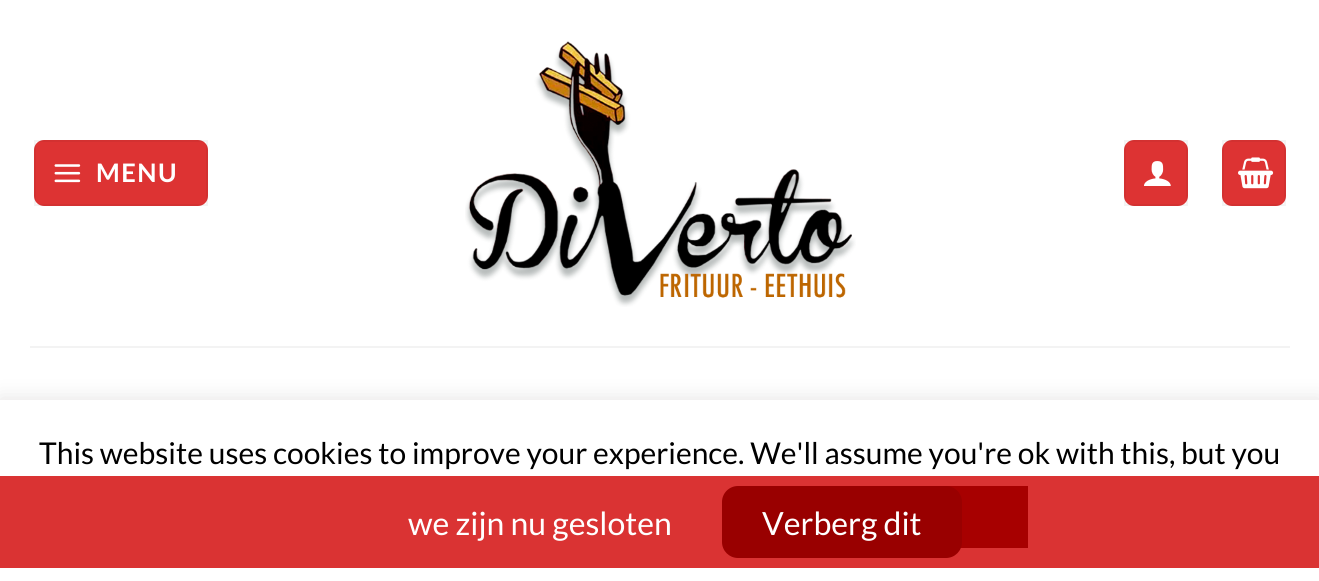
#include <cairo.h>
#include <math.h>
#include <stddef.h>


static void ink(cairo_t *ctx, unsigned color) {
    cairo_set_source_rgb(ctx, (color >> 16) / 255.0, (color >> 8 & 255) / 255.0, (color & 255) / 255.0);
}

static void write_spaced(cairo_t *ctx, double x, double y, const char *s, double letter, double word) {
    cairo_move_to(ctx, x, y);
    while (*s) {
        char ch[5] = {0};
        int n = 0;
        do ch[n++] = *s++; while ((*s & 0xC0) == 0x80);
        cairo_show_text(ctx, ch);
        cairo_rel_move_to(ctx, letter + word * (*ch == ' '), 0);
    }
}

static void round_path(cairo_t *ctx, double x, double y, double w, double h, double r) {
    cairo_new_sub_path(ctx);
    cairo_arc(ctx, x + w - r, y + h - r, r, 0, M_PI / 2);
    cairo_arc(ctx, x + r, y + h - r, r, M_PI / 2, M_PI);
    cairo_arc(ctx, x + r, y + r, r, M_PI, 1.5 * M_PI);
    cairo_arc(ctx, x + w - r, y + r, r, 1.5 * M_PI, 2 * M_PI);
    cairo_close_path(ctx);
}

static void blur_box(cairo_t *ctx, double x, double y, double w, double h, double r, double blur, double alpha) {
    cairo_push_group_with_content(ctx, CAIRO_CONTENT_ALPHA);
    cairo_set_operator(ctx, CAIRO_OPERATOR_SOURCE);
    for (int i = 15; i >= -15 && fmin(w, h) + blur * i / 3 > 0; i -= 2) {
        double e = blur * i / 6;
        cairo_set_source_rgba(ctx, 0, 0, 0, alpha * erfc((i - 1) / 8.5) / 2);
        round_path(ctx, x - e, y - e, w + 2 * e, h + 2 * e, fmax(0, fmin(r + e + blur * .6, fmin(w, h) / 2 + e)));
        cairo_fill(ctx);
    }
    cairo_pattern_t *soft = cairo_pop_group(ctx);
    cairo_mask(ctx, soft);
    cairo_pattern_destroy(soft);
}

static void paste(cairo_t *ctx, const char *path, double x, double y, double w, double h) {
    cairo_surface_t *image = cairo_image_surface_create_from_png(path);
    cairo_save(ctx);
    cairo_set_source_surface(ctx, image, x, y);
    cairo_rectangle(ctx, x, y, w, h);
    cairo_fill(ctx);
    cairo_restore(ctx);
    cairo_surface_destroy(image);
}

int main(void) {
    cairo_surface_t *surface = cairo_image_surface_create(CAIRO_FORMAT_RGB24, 1319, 581);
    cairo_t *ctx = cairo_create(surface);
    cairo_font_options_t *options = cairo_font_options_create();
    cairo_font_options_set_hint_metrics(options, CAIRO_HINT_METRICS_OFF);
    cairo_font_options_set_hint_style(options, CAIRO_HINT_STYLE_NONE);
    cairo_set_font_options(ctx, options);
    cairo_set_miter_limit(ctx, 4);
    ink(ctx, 0xFFFFFF);
    cairo_paint(ctx);
    ink(ctx, 0xDD3333);
    round_path(ctx, 34, 140, 174, 66, 10);
    cairo_fill(ctx);
    cairo_rectangle(ctx, 35, 141, 172, 64);
    cairo_set_source_rgba(ctx, 0, 0, 0, 0.05);
    cairo_stroke(ctx);
    paste(ctx, "media/1.png", 54, 164, 27, 19);
    cairo_select_font_face(ctx, "Lato", CAIRO_FONT_SLANT_NORMAL, CAIRO_FONT_WEIGHT_BOLD);
    cairo_set_font_size(ctx, 25.5);
    ink(ctx, 0xFFFFFF);
    write_spaced(ctx, 96, 182, "MENU", 1.5, 0);
    paste(ctx, "media/2.png", 465, 41, 391, 266);
    ink(ctx, 0xDD3333);
    round_path(ctx, 1124, 140, 64, 66, 10);
    cairo_fill(ctx);
    cairo_rectangle(ctx, 1125, 141, 62, 64);
    cairo_set_source_rgba(ctx, 0, 0, 0, 0.05);
    cairo_stroke(ctx);
    paste(ctx, "media/3.png", 1144, 161, 27, 25);
    ink(ctx, 0xDD3333);
    round_path(ctx, 1222, 140, 64, 66, 10);
    cairo_fill(ctx);
    cairo_rectangle(ctx, 1223, 141, 62, 64);
    cairo_set_source_rgba(ctx, 0, 0, 0, 0.05);
    cairo_stroke(ctx);
    paste(ctx, "media/4.png", 1238, 157, 36, 32);
    ink(ctx, 0xF3F3F3);
    cairo_rectangle(ctx, 30, 346, 1260, 2);
    cairo_fill(ctx);
    ink(ctx, 0xACABAB);
    blur_box(ctx, 0, 398, 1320, 182, 0, 10, 0.3);
    ink(ctx, 0xFFFFFF);
    cairo_rectangle(ctx, 0, 400, 1319, 181);
    cairo_fill(ctx);
    cairo_select_font_face(ctx, "Lato", CAIRO_FONT_SLANT_NORMAL, CAIRO_FONT_WEIGHT_NORMAL);
    cairo_set_font_size(ctx, 30);
    ink(ctx, 0x000000);
    cairo_move_to(ctx, 39, 464);
    cairo_show_text(ctx, "This website uses cookies to improve your experience. We'll assume you're ok with this, but you");
    cairo_rectangle(ctx, 946, 486, 82, 62);
    cairo_fill(ctx);
    cairo_set_source_rgba(ctx, 0.816, 0, 0, 0.8);
    cairo_rectangle(ctx, 0, 476, 1319, 92);
    cairo_fill(ctx);
    cairo_set_font_size(ctx, 32);
    ink(ctx, 0xFFFFFF);
    cairo_move_to(ctx, 408, 535);
    cairo_show_text(ctx, "we zijn nu gesloten");
    ink(ctx, 0x990000);
    round_path(ctx, 722, 486, 240, 72, 16);
    cairo_fill(ctx);
    ink(ctx, 0xFFFFFF);
    cairo_move_to(ctx, 762, 535);
    cairo_show_text(ctx, "Verberg dit");
    cairo_surface_write_to_png(surface, "image.png");
    cairo_font_options_destroy(options);
    cairo_destroy(ctx);
    cairo_surface_destroy(surface);
    return 0;
}
